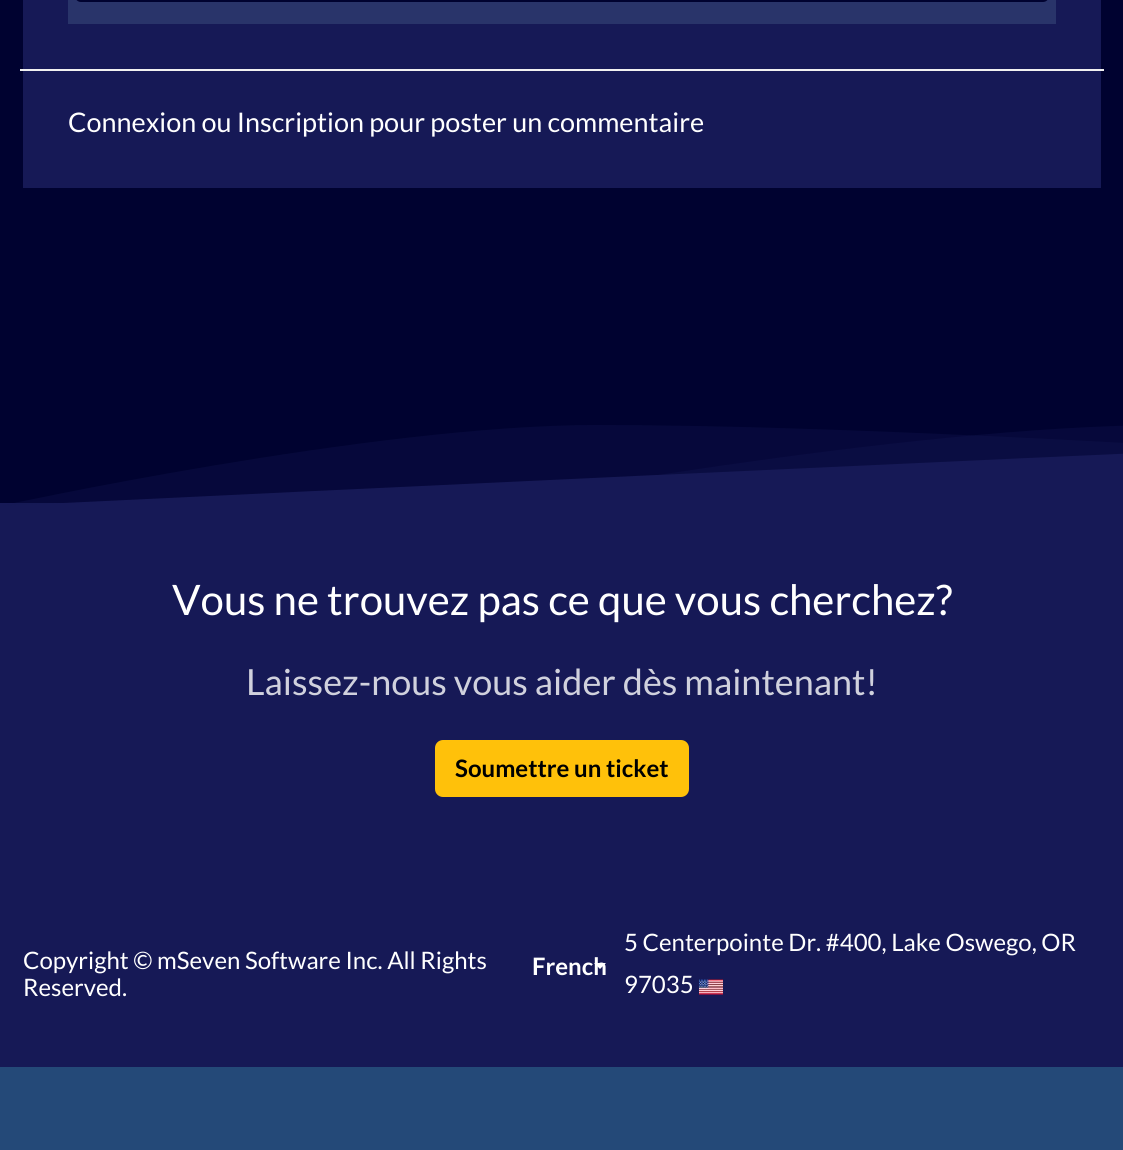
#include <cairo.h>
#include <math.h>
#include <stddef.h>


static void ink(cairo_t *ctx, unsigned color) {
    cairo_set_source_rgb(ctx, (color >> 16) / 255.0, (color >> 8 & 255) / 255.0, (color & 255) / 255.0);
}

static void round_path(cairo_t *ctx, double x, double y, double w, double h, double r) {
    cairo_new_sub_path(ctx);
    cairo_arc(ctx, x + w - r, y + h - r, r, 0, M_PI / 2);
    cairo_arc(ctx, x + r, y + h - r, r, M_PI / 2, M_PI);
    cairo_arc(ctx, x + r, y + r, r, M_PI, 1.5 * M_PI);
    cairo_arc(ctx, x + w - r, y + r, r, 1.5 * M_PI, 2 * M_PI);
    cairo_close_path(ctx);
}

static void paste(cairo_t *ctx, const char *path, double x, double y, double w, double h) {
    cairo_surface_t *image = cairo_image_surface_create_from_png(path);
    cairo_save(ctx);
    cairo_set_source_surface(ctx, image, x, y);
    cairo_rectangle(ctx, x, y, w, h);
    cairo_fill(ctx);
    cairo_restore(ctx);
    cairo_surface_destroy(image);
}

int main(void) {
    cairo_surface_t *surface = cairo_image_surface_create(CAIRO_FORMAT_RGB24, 1123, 1150);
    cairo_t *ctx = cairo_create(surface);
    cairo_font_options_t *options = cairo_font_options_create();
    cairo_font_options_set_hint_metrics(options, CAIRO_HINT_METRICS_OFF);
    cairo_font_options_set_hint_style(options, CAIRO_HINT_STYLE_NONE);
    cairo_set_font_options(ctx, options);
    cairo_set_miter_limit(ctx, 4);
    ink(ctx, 0x000230);
    cairo_paint(ctx);
    ink(ctx, 0x161956);
    cairo_rectangle(ctx, 23, 0, 1078, 188);
    cairo_fill(ctx);
    ink(ctx, 0x29346A);
    cairo_rectangle(ctx, 68, 0, 988, 24);
    cairo_fill(ctx);
    ink(ctx, 0x000230);
    round_path(ctx, 75, -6, 974, 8, 6);
    cairo_fill(ctx);
    ink(ctx, 0xF1F1F1);
    cairo_rectangle(ctx, 20, 69, 1084, 2);
    cairo_fill(ctx);
    cairo_select_font_face(ctx, "Lato", CAIRO_FONT_SLANT_NORMAL, CAIRO_FONT_WEIGHT_NORMAL);
    cairo_set_font_size(ctx, 27);
    ink(ctx, 0xFFFFFF);
    cairo_move_to(ctx, 68, 132);
    cairo_show_text(ctx, "Connexion ou Inscription pour poster un commentaire");
    ink(ctx, 0x244978);
    cairo_new_path(ctx);
    cairo_move_to(ctx, -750, 278);
    cairo_line_to(ctx, -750, 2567);
    cairo_line_to(ctx, 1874, 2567);
    cairo_line_to(ctx, 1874, 278);
    cairo_line_to(ctx, 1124, 278);
    cairo_line_to(ctx, 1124, 1066);
    cairo_line_to(ctx, 0, 1066);
    cairo_line_to(ctx, 0, 278);
    cairo_close_path(ctx);
    cairo_fill(ctx);
    ink(ctx, 0x161956);
    cairo_rectangle(ctx, 0, 503, 1123, 564);
    cairo_fill(ctx);
    cairo_set_source_rgba(ctx, 0.086, 0.098, 0.337, 0.3);
    cairo_new_path(ctx);
    cairo_move_to(ctx, 596, 425);
    cairo_curve_to(ctx, 371, 425, 0, 506, 0, 506);
    cairo_line_to(ctx, 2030, 506);
    cairo_curve_to(ctx, 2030, 506, 1072, 425, 596, 425);
    cairo_close_path(ctx);
    cairo_fill(ctx);
    cairo_new_path(ctx);
    cairo_move_to(ctx, 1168, 425);
    cairo_curve_to(ctx, 906, 425, 473, 506, 473, 506);
    cairo_line_to(ctx, 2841, 506);
    cairo_curve_to(ctx, 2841, 506, 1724, 425, 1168, 425);
    cairo_close_path(ctx);
    cairo_fill(ctx);
    ink(ctx, 0x161956);
    cairo_set_fill_rule(ctx, CAIRO_FILL_RULE_EVEN_ODD);
    cairo_new_path(ctx);
    cairo_move_to(ctx, 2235, 411);
    cairo_curve_to(ctx, 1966, 411, 0, 506, 0, 506);
    cairo_line_to(ctx, 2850, 506);
    cairo_curve_to(ctx, 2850, 506, 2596, 411, 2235, 411);
    cairo_close_path(ctx);
    cairo_fill(ctx);
    cairo_set_font_size(ctx, 42);
    ink(ctx, 0xFFFFFF);
    cairo_move_to(ctx, 172, 615);
    cairo_show_text(ctx, "Vous ne trouvez pas ce que vous cherchez?");
    cairo_set_font_size(ctx, 36);
    ink(ctx, 0xD0D1DD);
    cairo_move_to(ctx, 246, 695);
    cairo_show_text(ctx, "Laissez-nous vous aider dès maintenant!");
    ink(ctx, 0xFFC10A);
    round_path(ctx, 436, 741, 252, 55, 7);
    cairo_fill_preserve(ctx);
    cairo_stroke(ctx);
    cairo_select_font_face(ctx, "Lato", CAIRO_FONT_SLANT_NORMAL, CAIRO_FONT_WEIGHT_BOLD);
    cairo_set_font_size(ctx, 24);
    ink(ctx, 0x000000);
    cairo_move_to(ctx, 455, 777);
    cairo_show_text(ctx, "Soumettre un ticket");
    cairo_select_font_face(ctx, "Lato", CAIRO_FONT_SLANT_NORMAL, CAIRO_FONT_WEIGHT_NORMAL);
    ink(ctx, 0xFFFFFF);
    cairo_move_to(ctx, 23, 969);
    cairo_show_text(ctx, "Copyright © mSeven Software Inc. All Rights");
    cairo_move_to(ctx, 23, 996);
    cairo_show_text(ctx, "Reserved.");
    cairo_select_font_face(ctx, "Lato", CAIRO_FONT_SLANT_NORMAL, CAIRO_FONT_WEIGHT_BOLD);
    cairo_move_to(ctx, 532, 975);
    cairo_show_text(ctx, "French");
    cairo_set_fill_rule(ctx, CAIRO_FILL_RULE_WINDING);
    cairo_new_path(ctx);
    cairo_move_to(ctx, 594, 963);
    cairo_line_to(ctx, 606, 963);
    cairo_line_to(ctx, 600, 969);
    cairo_close_path(ctx);
    cairo_fill(ctx);
    cairo_select_font_face(ctx, "Lato", CAIRO_FONT_SLANT_NORMAL, CAIRO_FONT_WEIGHT_NORMAL);
    cairo_move_to(ctx, 624, 951);
    cairo_show_text(ctx, "5 Centerpointe Dr. #400, Lake Oswego, OR");
    cairo_move_to(ctx, 624, 993);
    cairo_show_text(ctx, "97035");
    paste(ctx, "media/1.png", 699, 979, 24, 16);
    cairo_surface_write_to_png(surface, "image.png");
    cairo_font_options_destroy(options);
    cairo_destroy(ctx);
    cairo_surface_destroy(surface);
    return 0;
}
